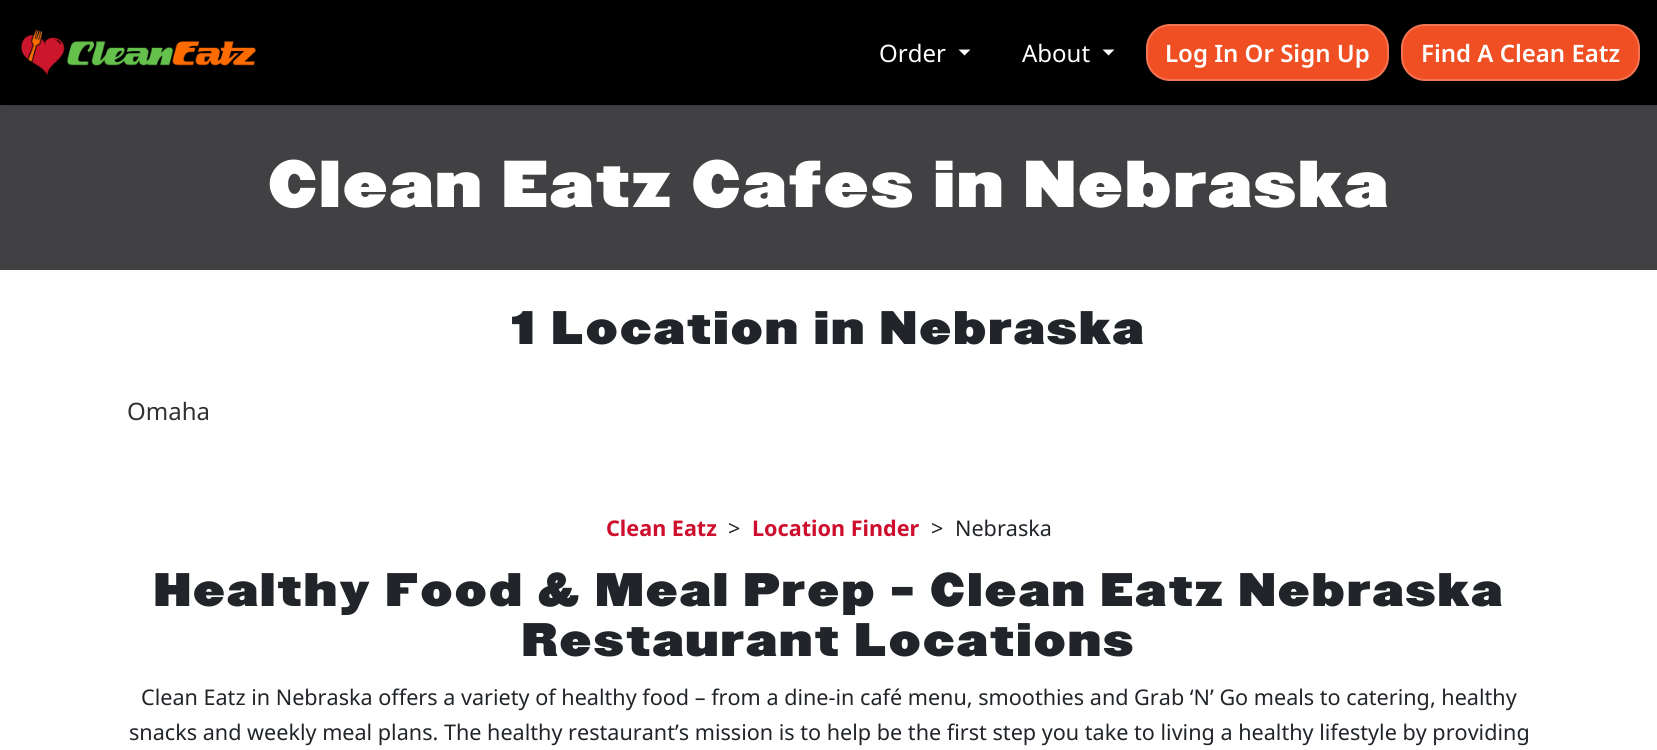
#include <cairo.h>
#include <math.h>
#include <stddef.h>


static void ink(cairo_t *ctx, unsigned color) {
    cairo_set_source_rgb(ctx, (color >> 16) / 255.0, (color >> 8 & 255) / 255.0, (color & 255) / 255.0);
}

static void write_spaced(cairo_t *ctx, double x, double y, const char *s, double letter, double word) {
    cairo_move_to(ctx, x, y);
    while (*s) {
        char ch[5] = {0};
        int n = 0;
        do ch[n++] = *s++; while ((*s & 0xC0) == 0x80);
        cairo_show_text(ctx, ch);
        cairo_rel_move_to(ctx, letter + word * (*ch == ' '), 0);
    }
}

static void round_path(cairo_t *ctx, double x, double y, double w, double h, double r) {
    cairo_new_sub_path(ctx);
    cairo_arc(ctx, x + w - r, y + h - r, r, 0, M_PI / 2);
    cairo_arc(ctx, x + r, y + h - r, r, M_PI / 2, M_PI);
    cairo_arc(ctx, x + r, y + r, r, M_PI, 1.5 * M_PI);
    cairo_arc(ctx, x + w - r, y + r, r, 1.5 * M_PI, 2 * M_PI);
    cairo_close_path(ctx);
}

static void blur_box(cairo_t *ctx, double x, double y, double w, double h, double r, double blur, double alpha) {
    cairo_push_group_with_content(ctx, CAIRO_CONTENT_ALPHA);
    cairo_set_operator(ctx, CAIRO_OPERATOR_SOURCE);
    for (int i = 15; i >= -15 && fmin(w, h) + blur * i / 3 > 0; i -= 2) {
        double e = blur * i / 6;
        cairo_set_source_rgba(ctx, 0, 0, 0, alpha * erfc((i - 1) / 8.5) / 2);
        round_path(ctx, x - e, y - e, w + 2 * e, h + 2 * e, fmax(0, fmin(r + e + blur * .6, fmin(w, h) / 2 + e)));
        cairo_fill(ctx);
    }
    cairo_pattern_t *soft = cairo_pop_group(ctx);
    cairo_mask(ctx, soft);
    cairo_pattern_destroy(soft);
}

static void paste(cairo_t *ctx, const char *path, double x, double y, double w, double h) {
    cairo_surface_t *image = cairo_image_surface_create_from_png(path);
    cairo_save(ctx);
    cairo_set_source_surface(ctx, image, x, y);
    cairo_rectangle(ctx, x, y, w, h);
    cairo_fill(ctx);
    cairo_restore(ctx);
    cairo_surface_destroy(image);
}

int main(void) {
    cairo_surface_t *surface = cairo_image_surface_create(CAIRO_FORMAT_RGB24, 1657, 750);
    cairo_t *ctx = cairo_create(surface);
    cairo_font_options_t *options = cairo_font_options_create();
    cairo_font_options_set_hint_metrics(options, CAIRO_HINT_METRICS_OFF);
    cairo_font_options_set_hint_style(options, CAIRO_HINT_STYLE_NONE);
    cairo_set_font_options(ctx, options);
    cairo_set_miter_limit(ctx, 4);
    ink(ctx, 0xFFFFFF);
    cairo_paint(ctx);
    ink(ctx, 0x414042);
    cairo_rectangle(ctx, 0, 105, 1657, 165);
    cairo_fill(ctx);
    ink(ctx, 0x000000);
    blur_box(ctx, 0, 3, 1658, 105, 0, 3, 0.07);
    ink(ctx, 0x000000);
    cairo_rectangle(ctx, 0, 0, 1657, 105);
    cairo_fill(ctx);
    paste(ctx, "media/1.png", 21, 29, 235, 46);
    cairo_select_font_face(ctx, "Noto Sans", CAIRO_FONT_SLANT_NORMAL, CAIRO_FONT_WEIGHT_NORMAL);
    cairo_set_font_size(ctx, 24);
    ink(ctx, 0xFFFFFF);
    cairo_move_to(ctx, 879, 62);
    cairo_show_text(ctx, "Order");
    cairo_new_path(ctx);
    cairo_move_to(ctx, 958.5, 49.5);
    cairo_line_to(ctx, 970.5, 49.5);
    cairo_line_to(ctx, 964.5, 55.5);
    cairo_close_path(ctx);
    cairo_fill(ctx);
    cairo_move_to(ctx, 1022, 62);
    cairo_show_text(ctx, "About");
    cairo_new_path(ctx);
    cairo_move_to(ctx, 1102.5, 49.5);
    cairo_line_to(ctx, 1114.5, 49.5);
    cairo_line_to(ctx, 1108.5, 55.5);
    cairo_close_path(ctx);
    cairo_fill(ctx);
    ink(ctx, 0xF04E23);
    round_path(ctx, 1147, 25, 241, 55, 23);
    cairo_fill_preserve(ctx);
    ink(ctx, 0xF37453);
    cairo_stroke(ctx);
    cairo_select_font_face(ctx, "Noto Sans SemiBold", CAIRO_FONT_SLANT_NORMAL, CAIRO_FONT_WEIGHT_NORMAL);
    ink(ctx, 0xFFFFFF);
    cairo_move_to(ctx, 1165, 62);
    cairo_show_text(ctx, "Log In Or Sign Up");
    ink(ctx, 0xF04E23);
    round_path(ctx, 1402, 25, 237, 55, 23);
    cairo_fill_preserve(ctx);
    ink(ctx, 0xF37453);
    cairo_stroke(ctx);
    ink(ctx, 0xFFFFFF);
    cairo_move_to(ctx, 1421, 62);
    cairo_show_text(ctx, "Find A Clean Eatz");
    cairo_select_font_face(ctx, "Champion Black", CAIRO_FONT_SLANT_NORMAL, CAIRO_FONT_WEIGHT_NORMAL);
    cairo_set_font_size(ctx, 57.9);
    write_spaced(ctx, 268, 207, "Clean Eatz Cafes in Nebraska", 2.4, 0);
    cairo_set_font_size(ctx, 41.15);
    ink(ctx, 0x212529);
    write_spaced(ctx, 511, 344, "1 Location in Nebraska", 2.4, 0);
    cairo_select_font_face(ctx, "Noto Sans", CAIRO_FONT_SLANT_NORMAL, CAIRO_FONT_WEIGHT_NORMAL);
    cairo_set_font_size(ctx, 24);
    ink(ctx, 0x313131);
    cairo_move_to(ctx, 127, 420);
    cairo_show_text(ctx, "Omaha");
    cairo_select_font_face(ctx, "Noto Sans", CAIRO_FONT_SLANT_NORMAL, CAIRO_FONT_WEIGHT_BOLD);
    cairo_set_font_size(ctx, 21.6);
    ink(ctx, 0xCE0E2D);
    cairo_move_to(ctx, 606, 536);
    cairo_show_text(ctx, "Clean Eatz");
    cairo_select_font_face(ctx, "Noto Sans", CAIRO_FONT_SLANT_NORMAL, CAIRO_FONT_WEIGHT_NORMAL);
    ink(ctx, 0x212529);
    cairo_move_to(ctx, 728, 536);
    cairo_show_text(ctx, ">");
    cairo_select_font_face(ctx, "Noto Sans", CAIRO_FONT_SLANT_NORMAL, CAIRO_FONT_WEIGHT_BOLD);
    ink(ctx, 0xCE0E2D);
    cairo_move_to(ctx, 752, 536);
    cairo_show_text(ctx, "Location Finder");
    cairo_select_font_face(ctx, "Noto Sans", CAIRO_FONT_SLANT_NORMAL, CAIRO_FONT_WEIGHT_NORMAL);
    ink(ctx, 0x212529);
    cairo_move_to(ctx, 931, 536);
    cairo_show_text(ctx, ">");
    cairo_move_to(ctx, 955, 536);
    cairo_show_text(ctx, "Nebraska");
    cairo_select_font_face(ctx, "Champion Black", CAIRO_FONT_SLANT_NORMAL, CAIRO_FONT_WEIGHT_NORMAL);
    cairo_set_font_size(ctx, 41.15);
    write_spaced(ctx, 154, 606, "Healthy Food & Meal Prep – Clean Eatz Nebraska", 2.4, 0);
    write_spaced(ctx, 522, 656, "Restaurant Locations", 2.4, 0);
    cairo_select_font_face(ctx, "Noto Sans", CAIRO_FONT_SLANT_NORMAL, CAIRO_FONT_WEIGHT_NORMAL);
    cairo_set_font_size(ctx, 21.6);
    cairo_move_to(ctx, 141, 705);
    cairo_show_text(ctx, "Clean Eatz in Nebraska offers a variety of healthy food – from a dine-in café menu, smoothies and Grab ‘N’ Go meals to catering, healthy");
    cairo_move_to(ctx, 129, 740);
    cairo_show_text(ctx, "snacks and weekly meal plans. The healthy restaurant’s mission is to help be the first step you take to living a healthy lifestyle by providing");
    cairo_surface_write_to_png(surface, "image.png");
    cairo_font_options_destroy(options);
    cairo_destroy(ctx);
    cairo_surface_destroy(surface);
    return 0;
}
